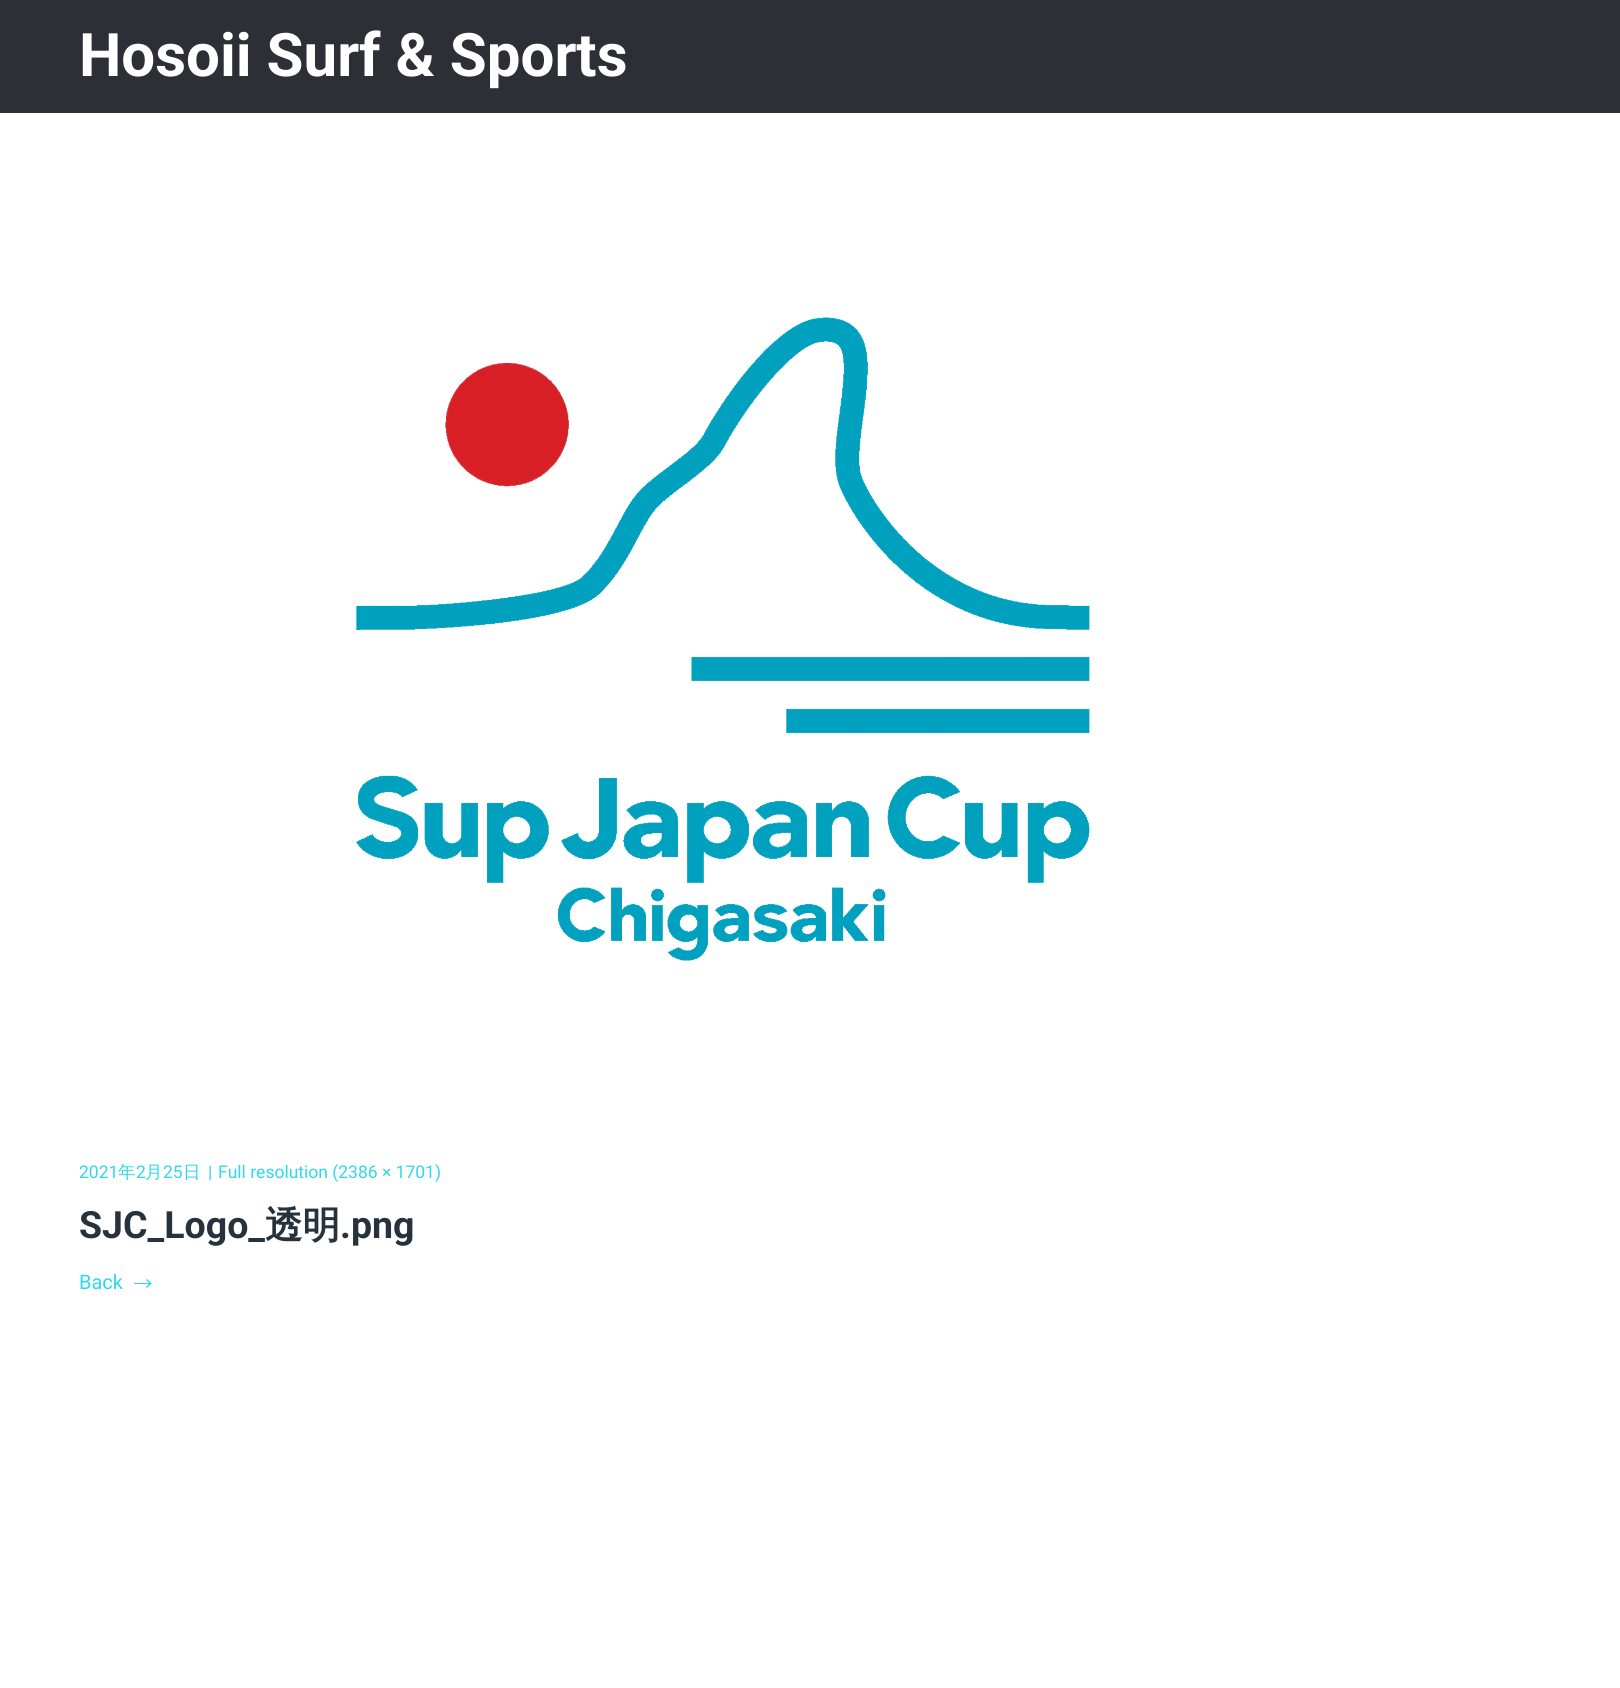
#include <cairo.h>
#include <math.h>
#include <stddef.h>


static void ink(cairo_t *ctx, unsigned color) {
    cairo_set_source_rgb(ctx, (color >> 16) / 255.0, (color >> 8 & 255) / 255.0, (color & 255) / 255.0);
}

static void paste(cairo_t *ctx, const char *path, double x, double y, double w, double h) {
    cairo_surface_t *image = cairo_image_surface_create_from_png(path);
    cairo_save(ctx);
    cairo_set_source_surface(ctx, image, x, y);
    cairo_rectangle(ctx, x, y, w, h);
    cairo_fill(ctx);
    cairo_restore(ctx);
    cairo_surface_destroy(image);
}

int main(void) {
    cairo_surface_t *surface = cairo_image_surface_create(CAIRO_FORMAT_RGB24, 1620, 1688);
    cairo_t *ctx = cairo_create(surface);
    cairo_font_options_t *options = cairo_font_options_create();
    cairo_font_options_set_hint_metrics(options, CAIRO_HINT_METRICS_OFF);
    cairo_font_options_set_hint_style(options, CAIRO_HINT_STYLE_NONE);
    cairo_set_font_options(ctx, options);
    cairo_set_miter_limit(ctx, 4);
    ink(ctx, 0xFFFFFF);
    cairo_paint(ctx);
    ink(ctx, 0x2C2F36);
    cairo_rectangle(ctx, 0, 0, 1620, 113);
    cairo_fill(ctx);
    cairo_select_font_face(ctx, "Roboto", CAIRO_FONT_SLANT_NORMAL, CAIRO_FONT_WEIGHT_BOLD);
    cairo_set_font_size(ctx, 60);
    ink(ctx, 0xFFFFFF);
    cairo_move_to(ctx, 79, 76);
    cairo_show_text(ctx, "Hosoii Surf & Sports");
    paste(ctx, "media/1.png", 356, 317, 734, 644);
    cairo_select_font_face(ctx, "Roboto", CAIRO_FONT_SLANT_NORMAL, CAIRO_FONT_WEIGHT_NORMAL);
    cairo_set_font_size(ctx, 17.5);
    ink(ctx, 0x2FD7ED);
    cairo_move_to(ctx, 79, 1178);
    cairo_show_text(ctx, "2021");
    cairo_select_font_face(ctx, "WenQuanYi Zen Hei Medium", CAIRO_FONT_SLANT_NORMAL, CAIRO_FONT_WEIGHT_NORMAL);
    cairo_move_to(ctx, 118, 1178);
    cairo_show_text(ctx, "年");
    cairo_select_font_face(ctx, "Roboto", CAIRO_FONT_SLANT_NORMAL, CAIRO_FONT_WEIGHT_NORMAL);
    cairo_move_to(ctx, 136, 1178);
    cairo_show_text(ctx, "2");
    cairo_select_font_face(ctx, "WenQuanYi Zen Hei Medium", CAIRO_FONT_SLANT_NORMAL, CAIRO_FONT_WEIGHT_NORMAL);
    cairo_move_to(ctx, 145, 1178);
    cairo_show_text(ctx, "月");
    cairo_select_font_face(ctx, "Roboto", CAIRO_FONT_SLANT_NORMAL, CAIRO_FONT_WEIGHT_NORMAL);
    cairo_move_to(ctx, 163, 1178);
    cairo_show_text(ctx, "25");
    cairo_select_font_face(ctx, "WenQuanYi Zen Hei Medium", CAIRO_FONT_SLANT_NORMAL, CAIRO_FONT_WEIGHT_NORMAL);
    cairo_move_to(ctx, 183, 1178);
    cairo_show_text(ctx, "日");
    cairo_select_font_face(ctx, "Roboto", CAIRO_FONT_SLANT_NORMAL, CAIRO_FONT_WEIGHT_NORMAL);
    cairo_move_to(ctx, 208, 1178);
    cairo_show_text(ctx, "|");
    cairo_move_to(ctx, 218, 1178);
    cairo_show_text(ctx, "Full resolution (2386 × 1701)");
    cairo_select_font_face(ctx, "Roboto", CAIRO_FONT_SLANT_NORMAL, CAIRO_FONT_WEIGHT_BOLD);
    cairo_set_font_size(ctx, 37.5);
    ink(ctx, 0x27323D);
    cairo_move_to(ctx, 79, 1238);
    cairo_show_text(ctx, "SJC_Logo_");
    cairo_select_font_face(ctx, "WenQuanYi Zen Hei", CAIRO_FONT_SLANT_NORMAL, CAIRO_FONT_WEIGHT_BOLD);
    cairo_move_to(ctx, 265, 1238);
    cairo_show_text(ctx, "透明");
    cairo_select_font_face(ctx, "Roboto", CAIRO_FONT_SLANT_NORMAL, CAIRO_FONT_WEIGHT_BOLD);
    cairo_move_to(ctx, 340, 1238);
    cairo_show_text(ctx, ".png");
    cairo_select_font_face(ctx, "Roboto", CAIRO_FONT_SLANT_NORMAL, CAIRO_FONT_WEIGHT_NORMAL);
    cairo_set_font_size(ctx, 20);
    ink(ctx, 0x2FD7ED);
    cairo_move_to(ctx, 79, 1289);
    cairo_show_text(ctx, "Back");
    cairo_rectangle(ctx, 134, 1283, 16, 1);
    cairo_fill(ctx);
    cairo_new_path(ctx);
    cairo_move_to(ctx, 146, 1280);
    cairo_line_to(ctx, 147, 1279);
    cairo_line_to(ctx, 151.5, 1283.5);
    cairo_line_to(ctx, 150.5, 1284.5);
    cairo_close_path(ctx);
    cairo_fill(ctx);
    cairo_new_path(ctx);
    cairo_move_to(ctx, 146, 1287);
    cairo_line_to(ctx, 150.5, 1282.5);
    cairo_line_to(ctx, 151.5, 1283.5);
    cairo_line_to(ctx, 147, 1288);
    cairo_close_path(ctx);
    cairo_fill(ctx);
    cairo_surface_write_to_png(surface, "image.png");
    cairo_font_options_destroy(options);
    cairo_destroy(ctx);
    cairo_surface_destroy(surface);
    return 0;
}
